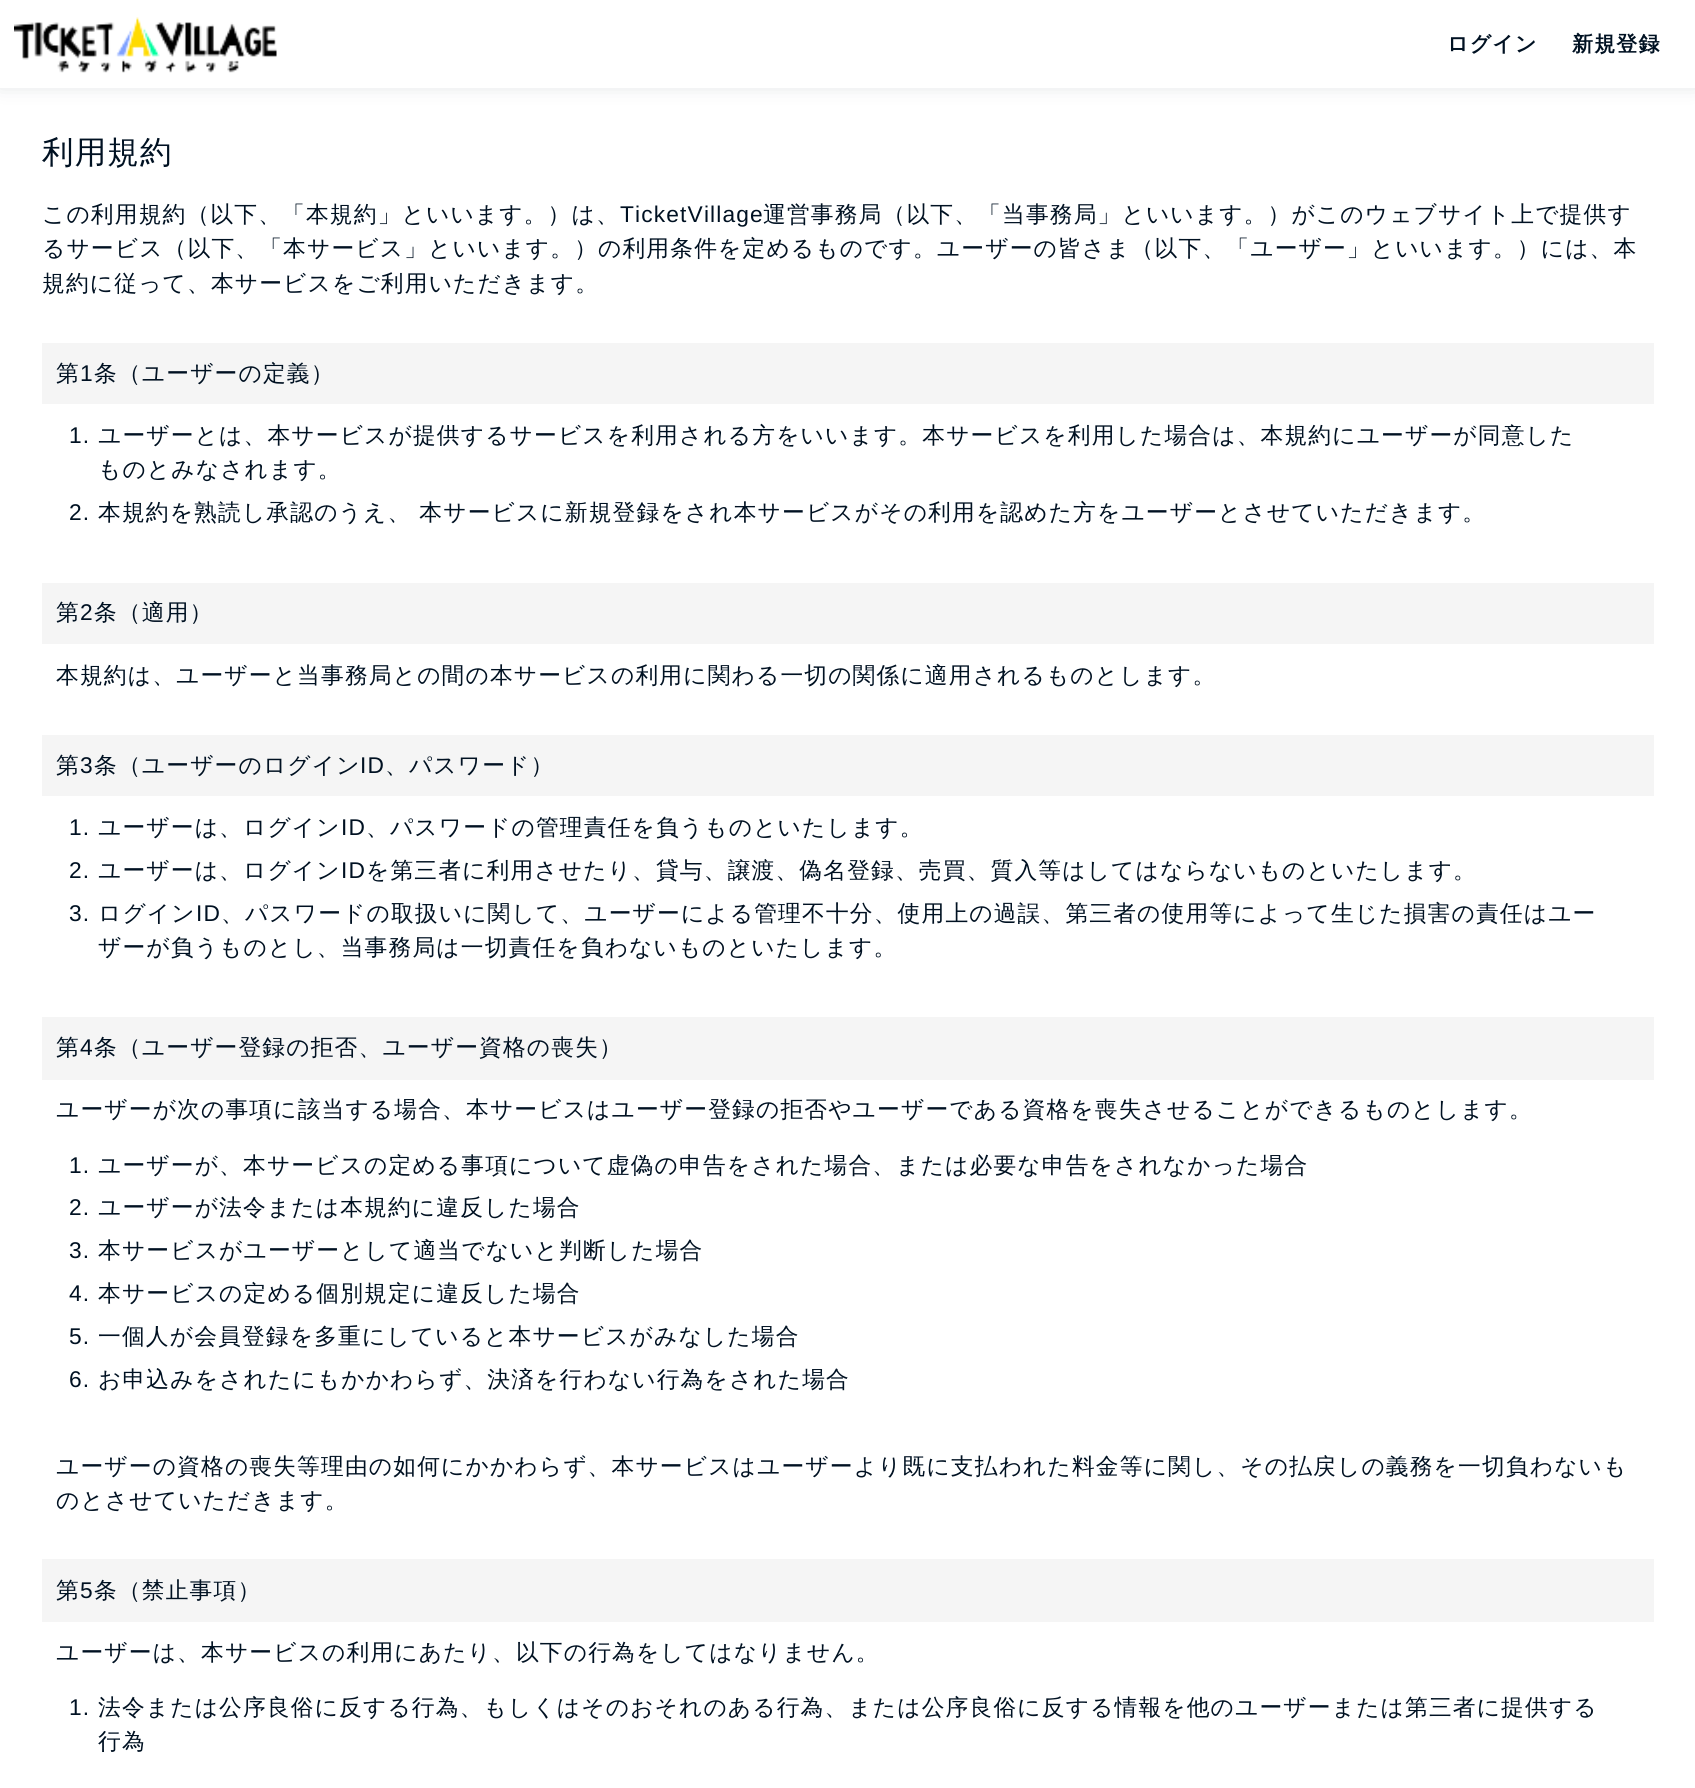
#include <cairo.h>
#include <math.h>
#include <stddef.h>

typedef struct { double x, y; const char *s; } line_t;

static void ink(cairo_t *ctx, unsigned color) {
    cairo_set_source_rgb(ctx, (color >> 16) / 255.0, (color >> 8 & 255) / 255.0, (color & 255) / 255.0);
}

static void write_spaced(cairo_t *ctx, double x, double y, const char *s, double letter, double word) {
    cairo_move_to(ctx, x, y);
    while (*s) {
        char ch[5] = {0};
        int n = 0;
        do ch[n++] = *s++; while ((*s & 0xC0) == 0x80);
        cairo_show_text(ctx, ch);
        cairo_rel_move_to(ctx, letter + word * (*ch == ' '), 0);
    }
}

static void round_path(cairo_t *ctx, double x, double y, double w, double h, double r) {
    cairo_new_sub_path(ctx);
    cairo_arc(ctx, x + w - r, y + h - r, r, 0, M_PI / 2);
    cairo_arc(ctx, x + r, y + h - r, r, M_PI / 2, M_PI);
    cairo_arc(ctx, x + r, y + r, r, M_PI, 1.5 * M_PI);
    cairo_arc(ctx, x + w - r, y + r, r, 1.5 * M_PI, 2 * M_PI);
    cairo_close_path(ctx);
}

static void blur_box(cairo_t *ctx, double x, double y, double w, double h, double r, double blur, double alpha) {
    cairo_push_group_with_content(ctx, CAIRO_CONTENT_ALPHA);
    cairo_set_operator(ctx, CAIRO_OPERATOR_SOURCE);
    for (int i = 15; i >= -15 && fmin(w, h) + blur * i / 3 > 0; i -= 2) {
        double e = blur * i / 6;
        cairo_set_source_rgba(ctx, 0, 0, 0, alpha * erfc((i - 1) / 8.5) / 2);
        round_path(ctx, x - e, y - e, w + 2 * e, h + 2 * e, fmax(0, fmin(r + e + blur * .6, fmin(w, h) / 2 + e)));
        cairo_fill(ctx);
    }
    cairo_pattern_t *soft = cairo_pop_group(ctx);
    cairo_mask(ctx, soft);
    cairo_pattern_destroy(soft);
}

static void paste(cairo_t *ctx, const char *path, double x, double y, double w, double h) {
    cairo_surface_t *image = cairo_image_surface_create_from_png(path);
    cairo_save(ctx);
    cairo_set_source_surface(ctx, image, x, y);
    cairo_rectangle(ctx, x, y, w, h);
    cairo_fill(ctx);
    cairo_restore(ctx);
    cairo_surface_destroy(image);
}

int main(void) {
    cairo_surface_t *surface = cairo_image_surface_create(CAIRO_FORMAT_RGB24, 1695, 1788);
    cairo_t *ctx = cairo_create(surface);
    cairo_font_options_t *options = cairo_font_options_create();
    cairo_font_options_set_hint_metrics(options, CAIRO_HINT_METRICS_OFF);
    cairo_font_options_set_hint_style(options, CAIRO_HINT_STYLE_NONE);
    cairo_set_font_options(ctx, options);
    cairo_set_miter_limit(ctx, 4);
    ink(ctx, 0xFFFFFF);
    cairo_paint(ctx);
    ink(ctx, 0x001122);
    blur_box(ctx, 0, -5, 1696, 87, 0, 10.5, 0.2);
    ink(ctx, 0xFFFFFF);
    cairo_rectangle(ctx, 0, 0, 1695, 88);
    cairo_fill(ctx);
    paste(ctx, "media/1.png", 14, 17, 263, 56);
    cairo_select_font_face(ctx, "WenQuanYi Zen Hei", CAIRO_FONT_SLANT_NORMAL, CAIRO_FONT_WEIGHT_BOLD);
    cairo_set_font_size(ctx, 21);
    ink(ctx, 0x001122);
    write_spaced(ctx, 1447, 51, "ログイン", 1.15, 0);
    write_spaced(ctx, 1572, 51, "新規登録", 1.15, 0);
    cairo_select_font_face(ctx, "WenQuanYi Zen Hei Medium", CAIRO_FONT_SLANT_NORMAL, CAIRO_FONT_WEIGHT_NORMAL);
    cairo_set_font_size(ctx, 31.5);
    write_spaced(ctx, 42, 163, "利用規約", 1.15, 0);
    cairo_set_font_size(ctx, 22.75);
    write_spaced(ctx, 42, 222, "この利用規約（以下、「本規約」といいます。）は、", 1.15, 0);
    cairo_select_font_face(ctx, "Liberation Sans", CAIRO_FONT_SLANT_NORMAL, CAIRO_FONT_WEIGHT_NORMAL);
    write_spaced(ctx, 620, 222, "TicketVillage", 1.15, 0);
    cairo_select_font_face(ctx, "WenQuanYi Zen Hei Medium", CAIRO_FONT_SLANT_NORMAL, CAIRO_FONT_WEIGHT_NORMAL);
    {
        static const line_t items[] = {
            {763, 222, "運営事務局（以下、「当事務局」といいます。）がこのウェブサイト上で提供す"},
            {42, 256, "るサービス（以下、「本サービス」といいます。）の利用条件を定めるものです。ユーザーの皆さま（以下、「ユーザー」といいます。）には、本"},
            {42, 291, "規約に従って、本サービスをご利用いただきます。"},
        };
        for (size_t i = 0; i < sizeof items / sizeof *items; i++) {
            write_spaced(ctx, items[i].x, items[i].y, items[i].s, 1.15, 0);
        }
    }
    ink(ctx, 0xF5F5F5);
    cairo_rectangle(ctx, 42, 343, 1612, 61);
    cairo_fill(ctx);
    ink(ctx, 0x001122);
    write_spaced(ctx, 56, 381, "第", 1.15, 0);
    cairo_select_font_face(ctx, "Liberation Sans", CAIRO_FONT_SLANT_NORMAL, CAIRO_FONT_WEIGHT_NORMAL);
    write_spaced(ctx, 80, 381, "1", 1.15, 0);
    cairo_select_font_face(ctx, "WenQuanYi Zen Hei Medium", CAIRO_FONT_SLANT_NORMAL, CAIRO_FONT_WEIGHT_NORMAL);
    write_spaced(ctx, 94, 381, "条（ユーザーの定義）", 1.15, 0);
    cairo_select_font_face(ctx, "Liberation Sans", CAIRO_FONT_SLANT_NORMAL, CAIRO_FONT_WEIGHT_NORMAL);
    write_spaced(ctx, 69, 443, "1.", 1.15, 0);
    cairo_select_font_face(ctx, "WenQuanYi Zen Hei Medium", CAIRO_FONT_SLANT_NORMAL, CAIRO_FONT_WEIGHT_NORMAL);
    write_spaced(ctx, 98, 443, "ユーザーとは、本サービスが提供するサービスを利用される方をいいます。本サービスを利用した場合は、本規約にユーザーが同意した", 1.15, 0);
    write_spaced(ctx, 98, 477, "ものとみなされます。", 1.15, 0);
    cairo_select_font_face(ctx, "Liberation Sans", CAIRO_FONT_SLANT_NORMAL, CAIRO_FONT_WEIGHT_NORMAL);
    write_spaced(ctx, 69, 520, "2.", 1.15, 0);
    cairo_select_font_face(ctx, "WenQuanYi Zen Hei Medium", CAIRO_FONT_SLANT_NORMAL, CAIRO_FONT_WEIGHT_NORMAL);
    write_spaced(ctx, 98, 520, "本規約を熟読し承認のうえ、 本サービスに新規登録をされ本サービスがその利用を認めた方をユーザーとさせていただきます。", 1.15, 0);
    ink(ctx, 0xF5F5F5);
    cairo_rectangle(ctx, 42, 583, 1612, 61);
    cairo_fill(ctx);
    ink(ctx, 0x001122);
    write_spaced(ctx, 56, 620, "第", 1.15, 0);
    cairo_select_font_face(ctx, "Liberation Sans", CAIRO_FONT_SLANT_NORMAL, CAIRO_FONT_WEIGHT_NORMAL);
    write_spaced(ctx, 80, 620, "2", 1.15, 0);
    cairo_select_font_face(ctx, "WenQuanYi Zen Hei Medium", CAIRO_FONT_SLANT_NORMAL, CAIRO_FONT_WEIGHT_NORMAL);
    write_spaced(ctx, 94, 620, "条（適用）", 1.15, 0);
    write_spaced(ctx, 56, 683, "本規約は、ユーザーと当事務局との間の本サービスの利用に関わる一切の関係に適用されるものとします。", 1.15, 0);
    ink(ctx, 0xF5F5F5);
    cairo_rectangle(ctx, 42, 735, 1612, 61);
    cairo_fill(ctx);
    ink(ctx, 0x001122);
    write_spaced(ctx, 56, 773, "第", 1.15, 0);
    cairo_select_font_face(ctx, "Liberation Sans", CAIRO_FONT_SLANT_NORMAL, CAIRO_FONT_WEIGHT_NORMAL);
    write_spaced(ctx, 80, 773, "3", 1.15, 0);
    cairo_select_font_face(ctx, "WenQuanYi Zen Hei Medium", CAIRO_FONT_SLANT_NORMAL, CAIRO_FONT_WEIGHT_NORMAL);
    write_spaced(ctx, 94, 773, "条（ユーザーのログイン", 1.15, 0);
    cairo_select_font_face(ctx, "Liberation Sans", CAIRO_FONT_SLANT_NORMAL, CAIRO_FONT_WEIGHT_NORMAL);
    write_spaced(ctx, 360, 773, "ID", 1.15, 0);
    cairo_select_font_face(ctx, "WenQuanYi Zen Hei Medium", CAIRO_FONT_SLANT_NORMAL, CAIRO_FONT_WEIGHT_NORMAL);
    write_spaced(ctx, 385, 773, "、パスワード）", 1.15, 0);
    cairo_select_font_face(ctx, "Liberation Sans", CAIRO_FONT_SLANT_NORMAL, CAIRO_FONT_WEIGHT_NORMAL);
    write_spaced(ctx, 69, 835, "1.", 1.15, 0);
    cairo_select_font_face(ctx, "WenQuanYi Zen Hei Medium", CAIRO_FONT_SLANT_NORMAL, CAIRO_FONT_WEIGHT_NORMAL);
    write_spaced(ctx, 98, 835, "ユーザーは、ログイン", 1.15, 0);
    cairo_select_font_face(ctx, "Liberation Sans", CAIRO_FONT_SLANT_NORMAL, CAIRO_FONT_WEIGHT_NORMAL);
    write_spaced(ctx, 341, 835, "ID", 1.15, 0);
    cairo_select_font_face(ctx, "WenQuanYi Zen Hei Medium", CAIRO_FONT_SLANT_NORMAL, CAIRO_FONT_WEIGHT_NORMAL);
    write_spaced(ctx, 366, 835, "、パスワードの管理責任を負うものといたします。", 1.15, 0);
    cairo_select_font_face(ctx, "Liberation Sans", CAIRO_FONT_SLANT_NORMAL, CAIRO_FONT_WEIGHT_NORMAL);
    write_spaced(ctx, 69, 878, "2.", 1.15, 0);
    cairo_select_font_face(ctx, "WenQuanYi Zen Hei Medium", CAIRO_FONT_SLANT_NORMAL, CAIRO_FONT_WEIGHT_NORMAL);
    write_spaced(ctx, 98, 878, "ユーザーは、ログイン", 1.15, 0);
    cairo_select_font_face(ctx, "Liberation Sans", CAIRO_FONT_SLANT_NORMAL, CAIRO_FONT_WEIGHT_NORMAL);
    write_spaced(ctx, 341, 878, "ID", 1.15, 0);
    cairo_select_font_face(ctx, "WenQuanYi Zen Hei Medium", CAIRO_FONT_SLANT_NORMAL, CAIRO_FONT_WEIGHT_NORMAL);
    write_spaced(ctx, 366, 878, "を第三者に利用させたり、貸与、譲渡、偽名登録、売買、質入等はしてはならないものといたします。", 1.15, 0);
    cairo_select_font_face(ctx, "Liberation Sans", CAIRO_FONT_SLANT_NORMAL, CAIRO_FONT_WEIGHT_NORMAL);
    write_spaced(ctx, 69, 921, "3.", 1.15, 0);
    cairo_select_font_face(ctx, "WenQuanYi Zen Hei Medium", CAIRO_FONT_SLANT_NORMAL, CAIRO_FONT_WEIGHT_NORMAL);
    write_spaced(ctx, 98, 921, "ログイン", 1.15, 0);
    cairo_select_font_face(ctx, "Liberation Sans", CAIRO_FONT_SLANT_NORMAL, CAIRO_FONT_WEIGHT_NORMAL);
    write_spaced(ctx, 196, 921, "ID", 1.15, 0);
    cairo_select_font_face(ctx, "WenQuanYi Zen Hei Medium", CAIRO_FONT_SLANT_NORMAL, CAIRO_FONT_WEIGHT_NORMAL);
    write_spaced(ctx, 221, 921, "、パスワードの取扱いに関して、ユーザーによる管理不十分、使用上の過誤、第三者の使用等によって生じた損害の責任はユー", 1.15, 0);
    write_spaced(ctx, 98, 955, "ザーが負うものとし、当事務局は一切責任を負わないものといたします。", 1.15, 0);
    ink(ctx, 0xF5F5F5);
    cairo_rectangle(ctx, 42, 1017, 1612, 63);
    cairo_fill(ctx);
    ink(ctx, 0x001122);
    write_spaced(ctx, 56, 1055, "第", 1.15, 0);
    cairo_select_font_face(ctx, "Liberation Sans", CAIRO_FONT_SLANT_NORMAL, CAIRO_FONT_WEIGHT_NORMAL);
    write_spaced(ctx, 80, 1055, "4", 1.15, 0);
    cairo_select_font_face(ctx, "WenQuanYi Zen Hei Medium", CAIRO_FONT_SLANT_NORMAL, CAIRO_FONT_WEIGHT_NORMAL);
    write_spaced(ctx, 94, 1055, "条（ユーザー登録の拒否、ユーザー資格の喪失）", 1.15, 0);
    write_spaced(ctx, 56, 1117, "ユーザーが次の事項に該当する場合、本サービスはユーザー登録の拒否やユーザーである資格を喪失させることができるものとします。", 1.15, 0);
    cairo_select_font_face(ctx, "Liberation Sans", CAIRO_FONT_SLANT_NORMAL, CAIRO_FONT_WEIGHT_NORMAL);
    write_spaced(ctx, 69, 1173, "1.", 1.15, 0);
    cairo_select_font_face(ctx, "WenQuanYi Zen Hei Medium", CAIRO_FONT_SLANT_NORMAL, CAIRO_FONT_WEIGHT_NORMAL);
    write_spaced(ctx, 98, 1173, "ユーザーが、本サービスの定める事項について虚偽の申告をされた場合、または必要な申告をされなかった場合", 1.15, 0);
    cairo_select_font_face(ctx, "Liberation Sans", CAIRO_FONT_SLANT_NORMAL, CAIRO_FONT_WEIGHT_NORMAL);
    write_spaced(ctx, 69, 1215, "2.", 1.15, 0);
    cairo_select_font_face(ctx, "WenQuanYi Zen Hei Medium", CAIRO_FONT_SLANT_NORMAL, CAIRO_FONT_WEIGHT_NORMAL);
    write_spaced(ctx, 98, 1215, "ユーザーが法令または本規約に違反した場合", 1.15, 0);
    cairo_select_font_face(ctx, "Liberation Sans", CAIRO_FONT_SLANT_NORMAL, CAIRO_FONT_WEIGHT_NORMAL);
    write_spaced(ctx, 69, 1258, "3.", 1.15, 0);
    cairo_select_font_face(ctx, "WenQuanYi Zen Hei Medium", CAIRO_FONT_SLANT_NORMAL, CAIRO_FONT_WEIGHT_NORMAL);
    write_spaced(ctx, 98, 1258, "本サービスがユーザーとして適当でないと判断した場合", 1.15, 0);
    cairo_select_font_face(ctx, "Liberation Sans", CAIRO_FONT_SLANT_NORMAL, CAIRO_FONT_WEIGHT_NORMAL);
    write_spaced(ctx, 69, 1301, "4.", 1.15, 0);
    cairo_select_font_face(ctx, "WenQuanYi Zen Hei Medium", CAIRO_FONT_SLANT_NORMAL, CAIRO_FONT_WEIGHT_NORMAL);
    write_spaced(ctx, 98, 1301, "本サービスの定める個別規定に違反した場合", 1.15, 0);
    cairo_select_font_face(ctx, "Liberation Sans", CAIRO_FONT_SLANT_NORMAL, CAIRO_FONT_WEIGHT_NORMAL);
    write_spaced(ctx, 69, 1344, "5.", 1.15, 0);
    cairo_select_font_face(ctx, "WenQuanYi Zen Hei Medium", CAIRO_FONT_SLANT_NORMAL, CAIRO_FONT_WEIGHT_NORMAL);
    write_spaced(ctx, 98, 1344, "一個人が会員登録を多重にしていると本サービスがみなした場合", 1.15, 0);
    cairo_select_font_face(ctx, "Liberation Sans", CAIRO_FONT_SLANT_NORMAL, CAIRO_FONT_WEIGHT_NORMAL);
    write_spaced(ctx, 69, 1387, "6.", 1.15, 0);
    cairo_select_font_face(ctx, "WenQuanYi Zen Hei Medium", CAIRO_FONT_SLANT_NORMAL, CAIRO_FONT_WEIGHT_NORMAL);
    {
        static const line_t items[] = {
            {98, 1387, "お申込みをされたにもかかわらず、決済を行わない行為をされた場合"},
            {56, 1474, "ユーザーの資格の喪失等理由の如何にかかわらず、本サービスはユーザーより既に支払われた料金等に関し、その払戻しの義務を一切負わないも"},
            {56, 1508, "のとさせていただきます。"},
        };
        for (size_t i = 0; i < sizeof items / sizeof *items; i++) {
            write_spaced(ctx, items[i].x, items[i].y, items[i].s, 1.15, 0);
        }
    }
    ink(ctx, 0xF5F5F5);
    cairo_rectangle(ctx, 42, 1559, 1612, 63);
    cairo_fill(ctx);
    ink(ctx, 0x001122);
    write_spaced(ctx, 56, 1598, "第", 1.15, 0);
    cairo_select_font_face(ctx, "Liberation Sans", CAIRO_FONT_SLANT_NORMAL, CAIRO_FONT_WEIGHT_NORMAL);
    write_spaced(ctx, 80, 1598, "5", 1.15, 0);
    cairo_select_font_face(ctx, "WenQuanYi Zen Hei Medium", CAIRO_FONT_SLANT_NORMAL, CAIRO_FONT_WEIGHT_NORMAL);
    write_spaced(ctx, 94, 1598, "条（禁止事項）", 1.15, 0);
    write_spaced(ctx, 56, 1660, "ユーザーは、本サービスの利用にあたり、以下の行為をしてはなりません。", 1.15, 0);
    cairo_select_font_face(ctx, "Liberation Sans", CAIRO_FONT_SLANT_NORMAL, CAIRO_FONT_WEIGHT_NORMAL);
    write_spaced(ctx, 69, 1715, "1.", 1.15, 0);
    cairo_select_font_face(ctx, "WenQuanYi Zen Hei Medium", CAIRO_FONT_SLANT_NORMAL, CAIRO_FONT_WEIGHT_NORMAL);
    write_spaced(ctx, 98, 1715, "法令または公序良俗に反する行為、もしくはそのおそれのある行為、または公序良俗に反する情報を他のユーザーまたは第三者に提供する", 1.15, 0);
    write_spaced(ctx, 98, 1749, "行為", 1.15, 0);
    cairo_surface_write_to_png(surface, "image.png");
    cairo_font_options_destroy(options);
    cairo_destroy(ctx);
    cairo_surface_destroy(surface);
    return 0;
}
